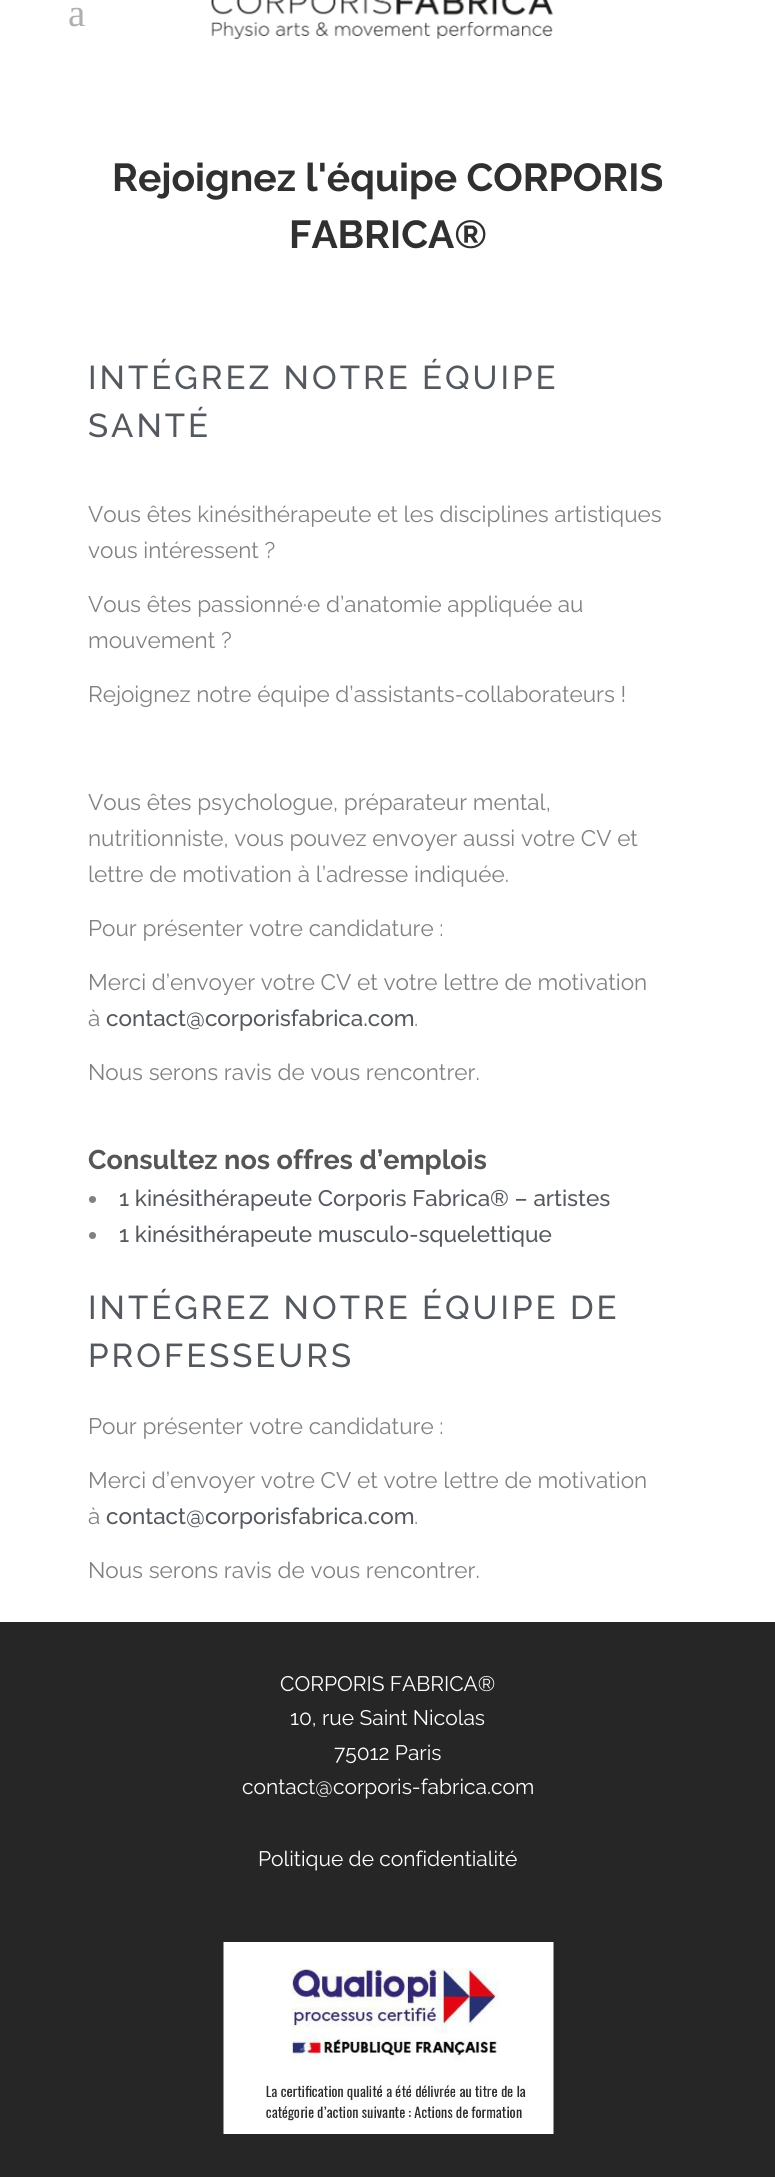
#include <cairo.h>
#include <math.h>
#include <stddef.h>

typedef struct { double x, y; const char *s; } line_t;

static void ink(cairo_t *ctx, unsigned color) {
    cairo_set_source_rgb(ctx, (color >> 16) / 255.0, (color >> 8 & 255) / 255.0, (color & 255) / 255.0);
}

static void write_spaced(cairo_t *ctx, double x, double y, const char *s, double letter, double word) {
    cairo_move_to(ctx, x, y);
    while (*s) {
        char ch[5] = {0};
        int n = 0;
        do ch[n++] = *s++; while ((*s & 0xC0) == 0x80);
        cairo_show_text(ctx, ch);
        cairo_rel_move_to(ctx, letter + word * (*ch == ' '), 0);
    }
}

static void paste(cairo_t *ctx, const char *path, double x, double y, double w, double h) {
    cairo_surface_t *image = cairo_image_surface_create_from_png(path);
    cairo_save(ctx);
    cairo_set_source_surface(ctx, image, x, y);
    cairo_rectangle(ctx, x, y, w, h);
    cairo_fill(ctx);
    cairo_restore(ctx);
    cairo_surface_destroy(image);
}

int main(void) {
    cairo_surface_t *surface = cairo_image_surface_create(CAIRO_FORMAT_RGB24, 775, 2177);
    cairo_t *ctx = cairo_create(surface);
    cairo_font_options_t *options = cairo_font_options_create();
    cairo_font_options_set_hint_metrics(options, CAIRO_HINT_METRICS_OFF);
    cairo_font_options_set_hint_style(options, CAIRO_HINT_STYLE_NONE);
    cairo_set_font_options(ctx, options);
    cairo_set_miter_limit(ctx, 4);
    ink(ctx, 0xFFFFFF);
    cairo_paint(ctx);
    cairo_select_font_face(ctx, "Liberation Serif", CAIRO_FONT_SLANT_NORMAL, CAIRO_FONT_WEIGHT_NORMAL);
    cairo_set_font_size(ctx, 39);
    ink(ctx, 0xAFAFAF);
    cairo_move_to(ctx, 68, 26);
    cairo_show_text(ctx, "a");
    paste(ctx, "media/1.png", 211, 0, 343, 39);
    cairo_select_font_face(ctx, "Raleway", CAIRO_FONT_SLANT_NORMAL, CAIRO_FONT_WEIGHT_BOLD);
    ink(ctx, 0x303030);
    cairo_move_to(ctx, 112, 191);
    cairo_show_text(ctx, "Rejoignez l'équipe CORPORIS");
    cairo_move_to(ctx, 289, 248);
    cairo_show_text(ctx, "FABRICA®");
    cairo_select_font_face(ctx, "Raleway Medium", CAIRO_FONT_SLANT_NORMAL, CAIRO_FONT_WEIGHT_NORMAL);
    cairo_set_font_size(ctx, 33);
    ink(ctx, 0x54595F);
    write_spaced(ctx, 88, 389, "INTÉGREZ NOTRE ÉQUIPE", 3, 0);
    write_spaced(ctx, 88, 437, "SANTÉ", 3, 0);
    cairo_select_font_face(ctx, "Raleway", CAIRO_FONT_SLANT_NORMAL, CAIRO_FONT_WEIGHT_NORMAL);
    cairo_set_font_size(ctx, 22.5);
    ink(ctx, 0x818181);
    {
        static const line_t items[] = {
            {88, 522, "Vous êtes kinésithérapeute et les disciplines artistiques"},
            {88, 558, "vous intéressent ?"},
            {88, 612, "Vous êtes passionné·e d’anatomie appliquée au"},
            {88, 648, "mouvement ?"},
            {88, 702, "Rejoignez notre équipe d’assistants-collaborateurs !"},
            {88, 810, "Vous êtes psychologue, préparateur mental,"},
            {88, 846, "nutritionniste, vous pouvez envoyer aussi votre CV et"},
            {88, 882, "lettre de motivation à l’adresse indiquée."},
            {88, 936, "Pour présenter votre candidature :"},
            {88, 990, "Merci d’envoyer votre CV et votre lettre de motivation"},
            {88, 1026, "à"},
        };
        for (size_t i = 0; i < sizeof items / sizeof *items; i++) {
            cairo_move_to(ctx, items[i].x, items[i].y);
            cairo_show_text(ctx, items[i].s);
        }
    }
    cairo_select_font_face(ctx, "Raleway Medium", CAIRO_FONT_SLANT_NORMAL, CAIRO_FONT_WEIGHT_NORMAL);
    ink(ctx, 0x54595F);
    cairo_move_to(ctx, 106, 1026);
    cairo_show_text(ctx, "contact@corporisfabrica.com");
    cairo_select_font_face(ctx, "Raleway", CAIRO_FONT_SLANT_NORMAL, CAIRO_FONT_WEIGHT_NORMAL);
    ink(ctx, 0x818181);
    cairo_move_to(ctx, 414, 1026);
    cairo_show_text(ctx, ".");
    cairo_move_to(ctx, 88, 1080);
    cairo_show_text(ctx, "Nous serons ravis de vous rencontrer.");
    cairo_select_font_face(ctx, "Raleway", CAIRO_FONT_SLANT_NORMAL, CAIRO_FONT_WEIGHT_BOLD);
    cairo_set_font_size(ctx, 27);
    ink(ctx, 0x565656);
    cairo_move_to(ctx, 88, 1169);
    cairo_show_text(ctx, "Consultez nos offres d’emplois");
    ink(ctx, 0x818181);
    cairo_new_path(ctx);
    cairo_arc(ctx, 92.5, 1199.5, 3.5, 0, 2 * M_PI);
    cairo_fill(ctx);
    cairo_select_font_face(ctx, "Raleway Medium", CAIRO_FONT_SLANT_NORMAL, CAIRO_FONT_WEIGHT_NORMAL);
    cairo_set_font_size(ctx, 22.5);
    ink(ctx, 0x54595F);
    cairo_move_to(ctx, 119, 1206);
    cairo_show_text(ctx, "1 kinésithérapeute Corporis Fabrica® – artistes");
    ink(ctx, 0x818181);
    cairo_new_path(ctx);
    cairo_arc(ctx, 92.5, 1235.5, 3.5, 0, 2 * M_PI);
    cairo_fill(ctx);
    ink(ctx, 0x54595F);
    cairo_move_to(ctx, 119, 1242);
    cairo_show_text(ctx, "1 kinésithérapeute musculo-squelettique");
    cairo_set_font_size(ctx, 33);
    write_spaced(ctx, 88, 1319, "INTÉGREZ NOTRE ÉQUIPE DE", 3, 0);
    write_spaced(ctx, 88, 1367, "PROFESSEURS", 3, 0);
    cairo_select_font_face(ctx, "Raleway", CAIRO_FONT_SLANT_NORMAL, CAIRO_FONT_WEIGHT_NORMAL);
    cairo_set_font_size(ctx, 22.5);
    ink(ctx, 0x818181);
    {
        static const line_t items[] = {
            {88, 1434, "Pour présenter votre candidature :"},
            {88, 1488, "Merci d’envoyer votre CV et votre lettre de motivation"},
            {88, 1524, "à"},
        };
        for (size_t i = 0; i < sizeof items / sizeof *items; i++) {
            cairo_move_to(ctx, items[i].x, items[i].y);
            cairo_show_text(ctx, items[i].s);
        }
    }
    cairo_select_font_face(ctx, "Raleway Medium", CAIRO_FONT_SLANT_NORMAL, CAIRO_FONT_WEIGHT_NORMAL);
    ink(ctx, 0x54595F);
    cairo_move_to(ctx, 106, 1524);
    cairo_show_text(ctx, "contact@corporisfabrica.com");
    cairo_select_font_face(ctx, "Raleway", CAIRO_FONT_SLANT_NORMAL, CAIRO_FONT_WEIGHT_NORMAL);
    ink(ctx, 0x818181);
    cairo_move_to(ctx, 414, 1524);
    cairo_show_text(ctx, ".");
    cairo_move_to(ctx, 88, 1578);
    cairo_show_text(ctx, "Nous serons ravis de vous rencontrer.");
    ink(ctx, 0x262626);
    cairo_rectangle(ctx, 0, 1622, 775, 555);
    cairo_fill(ctx);
    cairo_set_font_size(ctx, 21);
    ink(ctx, 0xFFFFFF);
    {
        static const line_t items[] = {
            {280, 1691, "CORPORIS FABRICA®"},
            {290, 1725, "10, rue Saint Nicolas"},
            {334, 1760, "75012 Paris"},
            {242, 1794, "contact@corporis-fabrica.com"},
            {258, 1866, "Politique de confidentialité"},
        };
        for (size_t i = 0; i < sizeof items / sizeof *items; i++) {
            cairo_move_to(ctx, items[i].x, items[i].y);
            cairo_show_text(ctx, items[i].s);
        }
    }
    paste(ctx, "media/2.png", 223, 1942, 331, 192);
    cairo_surface_write_to_png(surface, "image.png");
    cairo_font_options_destroy(options);
    cairo_destroy(ctx);
    cairo_surface_destroy(surface);
    return 0;
}
